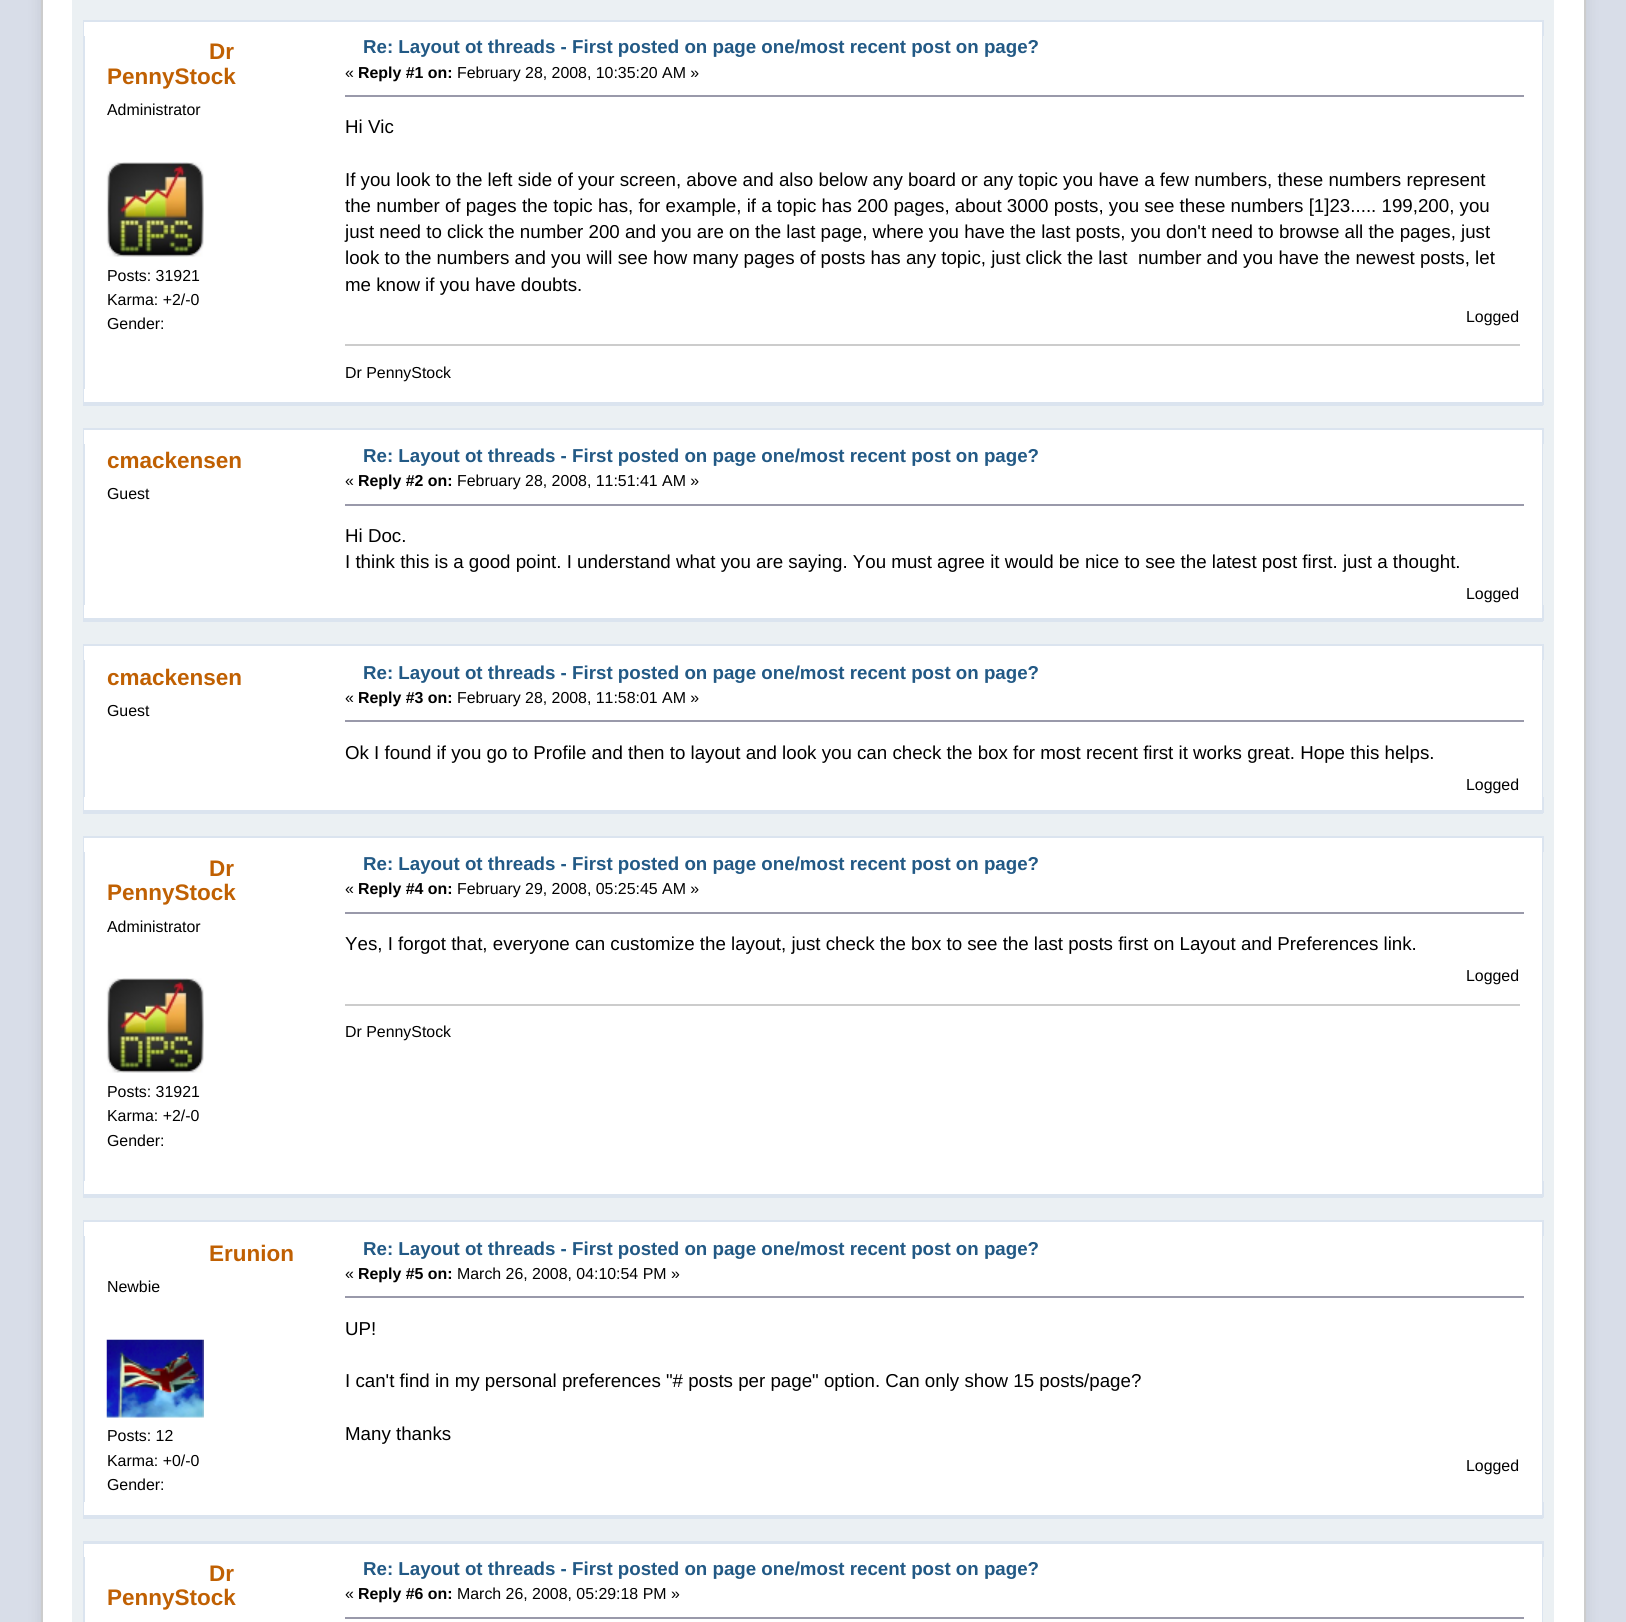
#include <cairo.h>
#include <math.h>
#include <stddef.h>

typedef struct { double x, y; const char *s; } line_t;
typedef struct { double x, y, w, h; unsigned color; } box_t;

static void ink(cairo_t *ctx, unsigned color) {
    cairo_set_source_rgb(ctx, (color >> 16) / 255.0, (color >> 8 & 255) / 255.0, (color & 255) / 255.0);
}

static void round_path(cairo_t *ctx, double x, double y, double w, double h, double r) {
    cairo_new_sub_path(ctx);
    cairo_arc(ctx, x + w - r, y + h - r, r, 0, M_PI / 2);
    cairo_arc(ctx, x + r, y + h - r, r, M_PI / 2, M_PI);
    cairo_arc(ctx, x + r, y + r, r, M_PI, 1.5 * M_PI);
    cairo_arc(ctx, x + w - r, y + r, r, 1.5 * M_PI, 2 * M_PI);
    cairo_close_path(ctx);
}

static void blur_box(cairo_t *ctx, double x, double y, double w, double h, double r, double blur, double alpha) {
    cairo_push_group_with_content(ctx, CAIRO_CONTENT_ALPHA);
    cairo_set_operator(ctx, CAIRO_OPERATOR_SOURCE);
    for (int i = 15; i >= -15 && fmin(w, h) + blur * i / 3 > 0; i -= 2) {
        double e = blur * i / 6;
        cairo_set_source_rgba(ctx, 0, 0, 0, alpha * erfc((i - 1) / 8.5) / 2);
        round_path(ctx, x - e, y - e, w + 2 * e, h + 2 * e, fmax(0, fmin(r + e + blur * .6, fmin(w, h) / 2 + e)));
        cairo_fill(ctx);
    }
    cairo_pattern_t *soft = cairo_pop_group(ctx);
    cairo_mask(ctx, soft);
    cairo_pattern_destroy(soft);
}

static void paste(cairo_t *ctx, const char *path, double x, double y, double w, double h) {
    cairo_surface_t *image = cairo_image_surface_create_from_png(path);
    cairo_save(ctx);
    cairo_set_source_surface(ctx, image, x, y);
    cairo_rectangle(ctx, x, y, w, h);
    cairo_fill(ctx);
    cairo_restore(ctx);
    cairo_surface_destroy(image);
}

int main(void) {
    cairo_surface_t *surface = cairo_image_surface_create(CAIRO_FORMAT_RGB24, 1626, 1622);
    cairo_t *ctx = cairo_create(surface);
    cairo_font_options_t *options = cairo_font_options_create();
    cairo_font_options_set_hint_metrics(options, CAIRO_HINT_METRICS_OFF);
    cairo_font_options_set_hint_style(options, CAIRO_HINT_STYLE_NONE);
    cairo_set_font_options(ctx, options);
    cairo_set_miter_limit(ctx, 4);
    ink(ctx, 0xD8DDE8);
    cairo_paint(ctx);
    ink(ctx, 0x000000);
    blur_box(ctx, 41, -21, 1545, 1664, 0, 7, 0.1);
    {
        static const box_t items[] = {
            {43, 0, 1541, 1622, 0xFFFFFF},
            {1584, 0, 2, 1622, 0xCCCCCC},
            {41, 0, 2, 1622, 0xCCCCCC},
        };
        for (size_t i = 0; i < sizeof items / sizeof *items; i++) {
            ink(ctx, items[i].color);
            cairo_rectangle(ctx, items[i].x, items[i].y, items[i].w, items[i].h);
            cairo_fill(ctx);
        }
    }
    cairo_rectangle(ctx, 77.5, -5.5, 1471, 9);
    ink(ctx, 0xEBF0F3);
    cairo_set_line_width(ctx, 11);
    cairo_stroke(ctx);
    cairo_rectangle(ctx, 84, 21, 1459, 385);
    ink(ctx, 0xDBE4EF);
    cairo_set_line_width(ctx, 2);
    cairo_stroke(ctx);
    cairo_rectangle(ctx, 77.5, 14.5, 1471, 397);
    ink(ctx, 0xEBF0F3);
    cairo_set_line_width(ctx, 11);
    cairo_stroke(ctx);
    ink(ctx, 0xFFFFFF);
    cairo_rectangle(ctx, 84, 22, 1, 14);
    cairo_fill(ctx);
    cairo_save(ctx);
    cairo_rectangle(ctx, 83, 20, 1461, 16);
    cairo_clip(ctx);
    ink(ctx, 0xDBE4EF);
    cairo_set_fill_rule(ctx, CAIRO_FILL_RULE_EVEN_ODD);
    cairo_new_path(ctx);
    cairo_move_to(ctx, -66, -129);
    cairo_line_to(ctx, 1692, -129);
    cairo_line_to(ctx, 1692, 184);
    cairo_line_to(ctx, -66, 184);
    cairo_close_path(ctx);
    cairo_move_to(ctx, 84, 22);
    cairo_line_to(ctx, 1542, 22);
    cairo_line_to(ctx, 1542, 36);
    cairo_line_to(ctx, 84, 36);
    cairo_close_path(ctx);
    cairo_fill(ctx);
    cairo_restore(ctx);
    cairo_select_font_face(ctx, "Liberation Sans", CAIRO_FONT_SLANT_NORMAL, CAIRO_FONT_WEIGHT_BOLD);
    cairo_set_font_size(ctx, 22.5);
    ink(ctx, 0xC06002);
    cairo_move_to(ctx, 209, 59);
    cairo_show_text(ctx, "Dr");
    cairo_move_to(ctx, 107, 84);
    cairo_show_text(ctx, "PennyStock");
    cairo_select_font_face(ctx, "Liberation Sans", CAIRO_FONT_SLANT_NORMAL, CAIRO_FONT_WEIGHT_NORMAL);
    cairo_set_font_size(ctx, 15.9);
    ink(ctx, 0x000000);
    cairo_move_to(ctx, 107, 115);
    cairo_show_text(ctx, "Administrator");
    paste(ctx, "media/1.png", 106, 162, 98, 95);
    {
        static const line_t items[] = {
            {107, 281, "Posts: 31921"},
            {107, 305, "Karma: +2/-0"},
            {107, 329, "Gender:"},
        };
        for (size_t i = 0; i < sizeof items / sizeof *items; i++) {
            cairo_move_to(ctx, items[i].x, items[i].y);
            cairo_show_text(ctx, items[i].s);
        }
    }
    cairo_select_font_face(ctx, "Liberation Sans", CAIRO_FONT_SLANT_NORMAL, CAIRO_FONT_WEIGHT_BOLD);
    cairo_set_font_size(ctx, 18.72);
    ink(ctx, 0x225985);
    cairo_move_to(ctx, 363, 53);
    cairo_show_text(ctx, "Re: Layout ot threads - First posted on page one/most recent post on page?");
    cairo_select_font_face(ctx, "Liberation Sans", CAIRO_FONT_SLANT_NORMAL, CAIRO_FONT_WEIGHT_NORMAL);
    cairo_set_font_size(ctx, 15.9);
    ink(ctx, 0x000000);
    cairo_move_to(ctx, 345, 78);
    cairo_show_text(ctx, "«");
    cairo_select_font_face(ctx, "Liberation Sans", CAIRO_FONT_SLANT_NORMAL, CAIRO_FONT_WEIGHT_BOLD);
    cairo_move_to(ctx, 358, 78);
    cairo_show_text(ctx, "Reply #1 on:");
    cairo_select_font_face(ctx, "Liberation Sans", CAIRO_FONT_SLANT_NORMAL, CAIRO_FONT_WEIGHT_NORMAL);
    cairo_move_to(ctx, 457, 78);
    cairo_show_text(ctx, "February 28, 2008, 10:35:20 AM »");
    ink(ctx, 0x9999AA);
    cairo_rectangle(ctx, 345, 95, 1179, 2);
    cairo_fill(ctx);
    cairo_set_font_size(ctx, 18.72);
    ink(ctx, 0x000000);
    {
        static const line_t items[] = {
            {345, 133, "Hi Vic"},
            {345, 186, "If you look to the left side of your screen, above and also below any board or any topic you have a few numbers, these numbers represent"},
            {345, 212, "the number of pages the topic has, for example, if a topic has 200 pages, about 3000 posts, you see these numbers [1]23..... 199,200, you"},
            {345, 238, "just need to click the number 200 and you are on the last page, where you have the last posts, you don't need to browse all the pages, just"},
            {345, 264, "look to the numbers and you will see how many pages of posts has any topic, just click the last  number and you have the newest posts, let"},
            {345, 291, "me know if you have doubts."},
        };
        for (size_t i = 0; i < sizeof items / sizeof *items; i++) {
            cairo_move_to(ctx, items[i].x, items[i].y);
            cairo_show_text(ctx, items[i].s);
        }
    }
    cairo_set_font_size(ctx, 15.9);
    cairo_move_to(ctx, 1466, 322);
    cairo_show_text(ctx, "Logged");
    ink(ctx, 0xCCCCCC);
    cairo_rectangle(ctx, 345, 344, 1175, 2);
    cairo_fill(ctx);
    ink(ctx, 0x000000);
    cairo_move_to(ctx, 345, 378);
    cairo_show_text(ctx, "Dr PennyStock");
    ink(ctx, 0xFFFFFF);
    cairo_rectangle(ctx, 84, 389, 1, 13);
    cairo_fill(ctx);
    cairo_save(ctx);
    cairo_rectangle(ctx, 83, 389, 1461, 16);
    cairo_clip(ctx);
    ink(ctx, 0xDBE4EF);
    cairo_set_fill_rule(ctx, CAIRO_FILL_RULE_EVEN_ODD);
    cairo_new_path(ctx);
    cairo_move_to(ctx, -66, 240);
    cairo_line_to(ctx, 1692, 240);
    cairo_line_to(ctx, 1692, 554);
    cairo_line_to(ctx, -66, 554);
    cairo_close_path(ctx);
    cairo_move_to(ctx, 84, 388);
    cairo_line_to(ctx, 1542, 388);
    cairo_line_to(ctx, 1542, 402);
    cairo_line_to(ctx, 84, 402);
    cairo_close_path(ctx);
    cairo_fill(ctx);
    cairo_restore(ctx);
    cairo_rectangle(ctx, 84, 429, 1459, 193);
    ink(ctx, 0xDBE4EF);
    cairo_set_line_width(ctx, 2);
    cairo_stroke(ctx);
    cairo_rectangle(ctx, 77.5, 422.5, 1471, 205);
    ink(ctx, 0xEBF0F3);
    cairo_set_line_width(ctx, 11);
    cairo_stroke(ctx);
    ink(ctx, 0xFFFFFF);
    cairo_rectangle(ctx, 84, 430, 1, 14);
    cairo_fill(ctx);
    cairo_save(ctx);
    cairo_rectangle(ctx, 83, 428, 1461, 16);
    cairo_clip(ctx);
    ink(ctx, 0xDBE4EF);
    cairo_set_fill_rule(ctx, CAIRO_FILL_RULE_EVEN_ODD);
    cairo_new_path(ctx);
    cairo_move_to(ctx, -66, 279);
    cairo_line_to(ctx, 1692, 279);
    cairo_line_to(ctx, 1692, 592);
    cairo_line_to(ctx, -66, 592);
    cairo_close_path(ctx);
    cairo_move_to(ctx, 84, 430);
    cairo_line_to(ctx, 1542, 430);
    cairo_line_to(ctx, 1542, 444);
    cairo_line_to(ctx, 84, 444);
    cairo_close_path(ctx);
    cairo_fill(ctx);
    cairo_restore(ctx);
    cairo_select_font_face(ctx, "Liberation Sans", CAIRO_FONT_SLANT_NORMAL, CAIRO_FONT_WEIGHT_BOLD);
    cairo_set_font_size(ctx, 22.5);
    ink(ctx, 0xC06002);
    cairo_move_to(ctx, 107, 468);
    cairo_show_text(ctx, "cmackensen");
    cairo_select_font_face(ctx, "Liberation Sans", CAIRO_FONT_SLANT_NORMAL, CAIRO_FONT_WEIGHT_NORMAL);
    cairo_set_font_size(ctx, 15.9);
    ink(ctx, 0x000000);
    cairo_move_to(ctx, 107, 499);
    cairo_show_text(ctx, "Guest");
    cairo_select_font_face(ctx, "Liberation Sans", CAIRO_FONT_SLANT_NORMAL, CAIRO_FONT_WEIGHT_BOLD);
    cairo_set_font_size(ctx, 18.72);
    ink(ctx, 0x225985);
    cairo_move_to(ctx, 363, 462);
    cairo_show_text(ctx, "Re: Layout ot threads - First posted on page one/most recent post on page?");
    cairo_select_font_face(ctx, "Liberation Sans", CAIRO_FONT_SLANT_NORMAL, CAIRO_FONT_WEIGHT_NORMAL);
    cairo_set_font_size(ctx, 15.9);
    ink(ctx, 0x000000);
    cairo_move_to(ctx, 345, 486);
    cairo_show_text(ctx, "«");
    cairo_select_font_face(ctx, "Liberation Sans", CAIRO_FONT_SLANT_NORMAL, CAIRO_FONT_WEIGHT_BOLD);
    cairo_move_to(ctx, 358, 486);
    cairo_show_text(ctx, "Reply #2 on:");
    cairo_select_font_face(ctx, "Liberation Sans", CAIRO_FONT_SLANT_NORMAL, CAIRO_FONT_WEIGHT_NORMAL);
    cairo_move_to(ctx, 457, 486);
    cairo_show_text(ctx, "February 28, 2008, 11:51:41 AM »");
    ink(ctx, 0x9999AA);
    cairo_rectangle(ctx, 345, 504, 1179, 2);
    cairo_fill(ctx);
    cairo_set_font_size(ctx, 18.72);
    ink(ctx, 0x000000);
    cairo_move_to(ctx, 345, 542);
    cairo_show_text(ctx, "Hi Doc.");
    cairo_move_to(ctx, 345, 568);
    cairo_show_text(ctx, "I think this is a good point. I understand what you are saying. You must agree it would be nice to see the latest post first. just a thought.");
    cairo_set_font_size(ctx, 15.9);
    cairo_move_to(ctx, 1466, 599);
    cairo_show_text(ctx, "Logged");
    ink(ctx, 0xFFFFFF);
    cairo_rectangle(ctx, 84, 605, 1, 13);
    cairo_fill(ctx);
    cairo_save(ctx);
    cairo_rectangle(ctx, 83, 605, 1461, 16);
    cairo_clip(ctx);
    ink(ctx, 0xDBE4EF);
    cairo_set_fill_rule(ctx, CAIRO_FILL_RULE_EVEN_ODD);
    cairo_new_path(ctx);
    cairo_move_to(ctx, -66, 456);
    cairo_line_to(ctx, 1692, 456);
    cairo_line_to(ctx, 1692, 770);
    cairo_line_to(ctx, -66, 770);
    cairo_close_path(ctx);
    cairo_move_to(ctx, 84, 604);
    cairo_line_to(ctx, 1542, 604);
    cairo_line_to(ctx, 1542, 618);
    cairo_line_to(ctx, 84, 618);
    cairo_close_path(ctx);
    cairo_fill(ctx);
    cairo_restore(ctx);
    cairo_rectangle(ctx, 84, 645, 1459, 169);
    ink(ctx, 0xDBE4EF);
    cairo_set_line_width(ctx, 2);
    cairo_stroke(ctx);
    cairo_rectangle(ctx, 77.5, 638.5, 1471, 181);
    ink(ctx, 0xEBF0F3);
    cairo_set_line_width(ctx, 11);
    cairo_stroke(ctx);
    ink(ctx, 0xFFFFFF);
    cairo_rectangle(ctx, 84, 646, 1, 14);
    cairo_fill(ctx);
    cairo_save(ctx);
    cairo_rectangle(ctx, 83, 644, 1461, 16);
    cairo_clip(ctx);
    ink(ctx, 0xDBE4EF);
    cairo_set_fill_rule(ctx, CAIRO_FILL_RULE_EVEN_ODD);
    cairo_new_path(ctx);
    cairo_move_to(ctx, -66, 495);
    cairo_line_to(ctx, 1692, 495);
    cairo_line_to(ctx, 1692, 808);
    cairo_line_to(ctx, -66, 808);
    cairo_close_path(ctx);
    cairo_move_to(ctx, 84, 646);
    cairo_line_to(ctx, 1542, 646);
    cairo_line_to(ctx, 1542, 660);
    cairo_line_to(ctx, 84, 660);
    cairo_close_path(ctx);
    cairo_fill(ctx);
    cairo_restore(ctx);
    cairo_select_font_face(ctx, "Liberation Sans", CAIRO_FONT_SLANT_NORMAL, CAIRO_FONT_WEIGHT_BOLD);
    cairo_set_font_size(ctx, 22.5);
    ink(ctx, 0xC06002);
    cairo_move_to(ctx, 107, 685);
    cairo_show_text(ctx, "cmackensen");
    cairo_select_font_face(ctx, "Liberation Sans", CAIRO_FONT_SLANT_NORMAL, CAIRO_FONT_WEIGHT_NORMAL);
    cairo_set_font_size(ctx, 15.9);
    ink(ctx, 0x000000);
    cairo_move_to(ctx, 107, 716);
    cairo_show_text(ctx, "Guest");
    cairo_select_font_face(ctx, "Liberation Sans", CAIRO_FONT_SLANT_NORMAL, CAIRO_FONT_WEIGHT_BOLD);
    cairo_set_font_size(ctx, 18.72);
    ink(ctx, 0x225985);
    cairo_move_to(ctx, 363, 679);
    cairo_show_text(ctx, "Re: Layout ot threads - First posted on page one/most recent post on page?");
    cairo_select_font_face(ctx, "Liberation Sans", CAIRO_FONT_SLANT_NORMAL, CAIRO_FONT_WEIGHT_NORMAL);
    cairo_set_font_size(ctx, 15.9);
    ink(ctx, 0x000000);
    cairo_move_to(ctx, 345, 703);
    cairo_show_text(ctx, "«");
    cairo_select_font_face(ctx, "Liberation Sans", CAIRO_FONT_SLANT_NORMAL, CAIRO_FONT_WEIGHT_BOLD);
    cairo_move_to(ctx, 358, 703);
    cairo_show_text(ctx, "Reply #3 on:");
    cairo_select_font_face(ctx, "Liberation Sans", CAIRO_FONT_SLANT_NORMAL, CAIRO_FONT_WEIGHT_NORMAL);
    cairo_move_to(ctx, 457, 703);
    cairo_show_text(ctx, "February 28, 2008, 11:58:01 AM »");
    ink(ctx, 0x9999AA);
    cairo_rectangle(ctx, 345, 720, 1179, 2);
    cairo_fill(ctx);
    cairo_set_font_size(ctx, 18.72);
    ink(ctx, 0x000000);
    cairo_move_to(ctx, 345, 759);
    cairo_show_text(ctx, "Ok I found if you go to Profile and then to layout and look you can check the box for most recent first it works great. Hope this helps.");
    cairo_set_font_size(ctx, 15.9);
    cairo_move_to(ctx, 1466, 790);
    cairo_show_text(ctx, "Logged");
    ink(ctx, 0xFFFFFF);
    cairo_rectangle(ctx, 84, 797, 1, 13);
    cairo_fill(ctx);
    cairo_save(ctx);
    cairo_rectangle(ctx, 83, 797, 1461, 16);
    cairo_clip(ctx);
    ink(ctx, 0xDBE4EF);
    cairo_set_fill_rule(ctx, CAIRO_FILL_RULE_EVEN_ODD);
    cairo_new_path(ctx);
    cairo_move_to(ctx, -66, 648);
    cairo_line_to(ctx, 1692, 648);
    cairo_line_to(ctx, 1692, 962);
    cairo_line_to(ctx, -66, 962);
    cairo_close_path(ctx);
    cairo_move_to(ctx, 84, 796);
    cairo_line_to(ctx, 1542, 796);
    cairo_line_to(ctx, 1542, 810);
    cairo_line_to(ctx, 84, 810);
    cairo_close_path(ctx);
    cairo_fill(ctx);
    cairo_restore(ctx);
    cairo_rectangle(ctx, 84, 837, 1459, 361);
    ink(ctx, 0xDBE4EF);
    cairo_set_line_width(ctx, 2);
    cairo_stroke(ctx);
    cairo_rectangle(ctx, 77.5, 830.5, 1471, 373);
    ink(ctx, 0xEBF0F3);
    cairo_set_line_width(ctx, 11);
    cairo_stroke(ctx);
    ink(ctx, 0xFFFFFF);
    cairo_rectangle(ctx, 84, 838, 1, 14);
    cairo_fill(ctx);
    cairo_save(ctx);
    cairo_rectangle(ctx, 83, 836, 1461, 16);
    cairo_clip(ctx);
    ink(ctx, 0xDBE4EF);
    cairo_set_fill_rule(ctx, CAIRO_FILL_RULE_EVEN_ODD);
    cairo_new_path(ctx);
    cairo_move_to(ctx, -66, 687);
    cairo_line_to(ctx, 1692, 687);
    cairo_line_to(ctx, 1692, 1000);
    cairo_line_to(ctx, -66, 1000);
    cairo_close_path(ctx);
    cairo_move_to(ctx, 84, 838);
    cairo_line_to(ctx, 1542, 838);
    cairo_line_to(ctx, 1542, 852);
    cairo_line_to(ctx, 84, 852);
    cairo_close_path(ctx);
    cairo_fill(ctx);
    cairo_restore(ctx);
    cairo_select_font_face(ctx, "Liberation Sans", CAIRO_FONT_SLANT_NORMAL, CAIRO_FONT_WEIGHT_BOLD);
    cairo_set_font_size(ctx, 22.5);
    ink(ctx, 0xC06002);
    cairo_move_to(ctx, 209, 876);
    cairo_show_text(ctx, "Dr");
    cairo_move_to(ctx, 107, 900);
    cairo_show_text(ctx, "PennyStock");
    cairo_select_font_face(ctx, "Liberation Sans", CAIRO_FONT_SLANT_NORMAL, CAIRO_FONT_WEIGHT_NORMAL);
    cairo_set_font_size(ctx, 15.9);
    ink(ctx, 0x000000);
    cairo_move_to(ctx, 107, 932);
    cairo_show_text(ctx, "Administrator");
    paste(ctx, "media/1.png", 106, 978, 98, 95);
    {
        static const line_t items[] = {
            {107, 1097, "Posts: 31921"},
            {107, 1121, "Karma: +2/-0"},
            {107, 1146, "Gender:"},
        };
        for (size_t i = 0; i < sizeof items / sizeof *items; i++) {
            cairo_move_to(ctx, items[i].x, items[i].y);
            cairo_show_text(ctx, items[i].s);
        }
    }
    cairo_select_font_face(ctx, "Liberation Sans", CAIRO_FONT_SLANT_NORMAL, CAIRO_FONT_WEIGHT_BOLD);
    cairo_set_font_size(ctx, 18.72);
    ink(ctx, 0x225985);
    cairo_move_to(ctx, 363, 870);
    cairo_show_text(ctx, "Re: Layout ot threads - First posted on page one/most recent post on page?");
    cairo_select_font_face(ctx, "Liberation Sans", CAIRO_FONT_SLANT_NORMAL, CAIRO_FONT_WEIGHT_NORMAL);
    cairo_set_font_size(ctx, 15.9);
    ink(ctx, 0x000000);
    cairo_move_to(ctx, 345, 894);
    cairo_show_text(ctx, "«");
    cairo_select_font_face(ctx, "Liberation Sans", CAIRO_FONT_SLANT_NORMAL, CAIRO_FONT_WEIGHT_BOLD);
    cairo_move_to(ctx, 358, 894);
    cairo_show_text(ctx, "Reply #4 on:");
    cairo_select_font_face(ctx, "Liberation Sans", CAIRO_FONT_SLANT_NORMAL, CAIRO_FONT_WEIGHT_NORMAL);
    cairo_move_to(ctx, 457, 894);
    cairo_show_text(ctx, "February 29, 2008, 05:25:45 AM »");
    ink(ctx, 0x9999AA);
    cairo_rectangle(ctx, 345, 912, 1179, 2);
    cairo_fill(ctx);
    cairo_set_font_size(ctx, 18.72);
    ink(ctx, 0x000000);
    cairo_move_to(ctx, 345, 950);
    cairo_show_text(ctx, "Yes, I forgot that, everyone can customize the layout, just check the box to see the last posts first on Layout and Preferences link.");
    cairo_set_font_size(ctx, 15.9);
    cairo_move_to(ctx, 1466, 981);
    cairo_show_text(ctx, "Logged");
    ink(ctx, 0xCCCCCC);
    cairo_rectangle(ctx, 345, 1004, 1175, 2);
    cairo_fill(ctx);
    ink(ctx, 0x000000);
    cairo_move_to(ctx, 345, 1037);
    cairo_show_text(ctx, "Dr PennyStock");
    ink(ctx, 0xFFFFFF);
    cairo_rectangle(ctx, 84, 1181, 1, 13);
    cairo_fill(ctx);
    cairo_save(ctx);
    cairo_rectangle(ctx, 83, 1181, 1461, 16);
    cairo_clip(ctx);
    ink(ctx, 0xDBE4EF);
    cairo_set_fill_rule(ctx, CAIRO_FILL_RULE_EVEN_ODD);
    cairo_new_path(ctx);
    cairo_move_to(ctx, -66, 1032);
    cairo_line_to(ctx, 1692, 1032);
    cairo_line_to(ctx, 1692, 1346);
    cairo_line_to(ctx, -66, 1346);
    cairo_close_path(ctx);
    cairo_move_to(ctx, 84, 1180);
    cairo_line_to(ctx, 1542, 1180);
    cairo_line_to(ctx, 1542, 1194);
    cairo_line_to(ctx, 84, 1194);
    cairo_close_path(ctx);
    cairo_fill(ctx);
    cairo_restore(ctx);
    cairo_rectangle(ctx, 84, 1221, 1459, 298);
    ink(ctx, 0xDBE4EF);
    cairo_set_line_width(ctx, 2);
    cairo_stroke(ctx);
    cairo_rectangle(ctx, 77.5, 1214.5, 1471, 310);
    ink(ctx, 0xEBF0F3);
    cairo_set_line_width(ctx, 11);
    cairo_stroke(ctx);
    ink(ctx, 0xFFFFFF);
    cairo_rectangle(ctx, 84, 1222, 1, 14);
    cairo_fill(ctx);
    cairo_save(ctx);
    cairo_rectangle(ctx, 83, 1220, 1461, 16);
    cairo_clip(ctx);
    ink(ctx, 0xDBE4EF);
    cairo_set_fill_rule(ctx, CAIRO_FILL_RULE_EVEN_ODD);
    cairo_new_path(ctx);
    cairo_move_to(ctx, -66, 1071);
    cairo_line_to(ctx, 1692, 1071);
    cairo_line_to(ctx, 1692, 1384);
    cairo_line_to(ctx, -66, 1384);
    cairo_close_path(ctx);
    cairo_move_to(ctx, 84, 1222);
    cairo_line_to(ctx, 1542, 1222);
    cairo_line_to(ctx, 1542, 1236);
    cairo_line_to(ctx, 84, 1236);
    cairo_close_path(ctx);
    cairo_fill(ctx);
    cairo_restore(ctx);
    cairo_select_font_face(ctx, "Liberation Sans", CAIRO_FONT_SLANT_NORMAL, CAIRO_FONT_WEIGHT_BOLD);
    cairo_set_font_size(ctx, 22.5);
    ink(ctx, 0xC06002);
    cairo_move_to(ctx, 209, 1261);
    cairo_show_text(ctx, "Erunion");
    cairo_select_font_face(ctx, "Liberation Sans", CAIRO_FONT_SLANT_NORMAL, CAIRO_FONT_WEIGHT_NORMAL);
    cairo_set_font_size(ctx, 15.9);
    ink(ctx, 0x000000);
    cairo_move_to(ctx, 107, 1292);
    cairo_show_text(ctx, "Newbie");
    paste(ctx, "media/2.png", 106, 1339, 98, 79);
    {
        static const line_t items[] = {
            {107, 1441, "Posts: 12"},
            {107, 1466, "Karma: +0/-0"},
            {107, 1490, "Gender:"},
        };
        for (size_t i = 0; i < sizeof items / sizeof *items; i++) {
            cairo_move_to(ctx, items[i].x, items[i].y);
            cairo_show_text(ctx, items[i].s);
        }
    }
    cairo_select_font_face(ctx, "Liberation Sans", CAIRO_FONT_SLANT_NORMAL, CAIRO_FONT_WEIGHT_BOLD);
    cairo_set_font_size(ctx, 18.72);
    ink(ctx, 0x225985);
    cairo_move_to(ctx, 363, 1255);
    cairo_show_text(ctx, "Re: Layout ot threads - First posted on page one/most recent post on page?");
    cairo_select_font_face(ctx, "Liberation Sans", CAIRO_FONT_SLANT_NORMAL, CAIRO_FONT_WEIGHT_NORMAL);
    cairo_set_font_size(ctx, 15.9);
    ink(ctx, 0x000000);
    cairo_move_to(ctx, 345, 1279);
    cairo_show_text(ctx, "«");
    cairo_select_font_face(ctx, "Liberation Sans", CAIRO_FONT_SLANT_NORMAL, CAIRO_FONT_WEIGHT_BOLD);
    cairo_move_to(ctx, 358, 1279);
    cairo_show_text(ctx, "Reply #5 on:");
    cairo_select_font_face(ctx, "Liberation Sans", CAIRO_FONT_SLANT_NORMAL, CAIRO_FONT_WEIGHT_NORMAL);
    cairo_move_to(ctx, 457, 1279);
    cairo_show_text(ctx, "March 26, 2008, 04:10:54 PM »");
    ink(ctx, 0x9999AA);
    cairo_rectangle(ctx, 345, 1296, 1179, 2);
    cairo_fill(ctx);
    cairo_set_font_size(ctx, 18.72);
    ink(ctx, 0x000000);
    {
        static const line_t items[] = {
            {345, 1335, "UP!"},
            {345, 1387, "I can't find in my personal preferences \"# posts per page\" option. Can only show 15 posts/page?"},
            {345, 1440, "Many thanks"},
        };
        for (size_t i = 0; i < sizeof items / sizeof *items; i++) {
            cairo_move_to(ctx, items[i].x, items[i].y);
            cairo_show_text(ctx, items[i].s);
        }
    }
    cairo_set_font_size(ctx, 15.9);
    cairo_move_to(ctx, 1466, 1471);
    cairo_show_text(ctx, "Logged");
    ink(ctx, 0xFFFFFF);
    cairo_rectangle(ctx, 84, 1502, 1, 13);
    cairo_fill(ctx);
    cairo_save(ctx);
    cairo_rectangle(ctx, 83, 1502, 1461, 16);
    cairo_clip(ctx);
    ink(ctx, 0xDBE4EF);
    cairo_set_fill_rule(ctx, CAIRO_FILL_RULE_EVEN_ODD);
    cairo_new_path(ctx);
    cairo_move_to(ctx, -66, 1353);
    cairo_line_to(ctx, 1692, 1353);
    cairo_line_to(ctx, 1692, 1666);
    cairo_line_to(ctx, -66, 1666);
    cairo_close_path(ctx);
    cairo_move_to(ctx, 84, 1502);
    cairo_line_to(ctx, 1542, 1502);
    cairo_line_to(ctx, 1542, 1515);
    cairo_line_to(ctx, 84, 1515);
    cairo_close_path(ctx);
    cairo_fill(ctx);
    cairo_restore(ctx);
    cairo_rectangle(ctx, 84, 1542, 1459, 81);
    ink(ctx, 0xDBE4EF);
    cairo_set_line_width(ctx, 2);
    cairo_stroke(ctx);
    cairo_rectangle(ctx, 77.5, 1535.5, 1471, 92);
    ink(ctx, 0xEBF0F3);
    cairo_set_line_width(ctx, 11);
    cairo_stroke(ctx);
    ink(ctx, 0xFFFFFF);
    cairo_rectangle(ctx, 84, 1544, 1, 13);
    cairo_fill(ctx);
    cairo_save(ctx);
    cairo_rectangle(ctx, 83, 1541, 1461, 16);
    cairo_clip(ctx);
    ink(ctx, 0xDBE4EF);
    cairo_set_fill_rule(ctx, CAIRO_FILL_RULE_EVEN_ODD);
    cairo_new_path(ctx);
    cairo_move_to(ctx, -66, 1392);
    cairo_line_to(ctx, 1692, 1392);
    cairo_line_to(ctx, 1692, 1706);
    cairo_line_to(ctx, -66, 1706);
    cairo_close_path(ctx);
    cairo_move_to(ctx, 84, 1544);
    cairo_line_to(ctx, 1542, 1544);
    cairo_line_to(ctx, 1542, 1557);
    cairo_line_to(ctx, 84, 1557);
    cairo_close_path(ctx);
    cairo_fill(ctx);
    cairo_restore(ctx);
    cairo_select_font_face(ctx, "Liberation Sans", CAIRO_FONT_SLANT_NORMAL, CAIRO_FONT_WEIGHT_BOLD);
    cairo_set_font_size(ctx, 22.5);
    ink(ctx, 0xC06002);
    cairo_move_to(ctx, 209, 1581);
    cairo_show_text(ctx, "Dr");
    cairo_move_to(ctx, 107, 1605);
    cairo_show_text(ctx, "PennyStock");
    cairo_set_font_size(ctx, 18.72);
    ink(ctx, 0x225985);
    cairo_move_to(ctx, 363, 1575);
    cairo_show_text(ctx, "Re: Layout ot threads - First posted on page one/most recent post on page?");
    cairo_select_font_face(ctx, "Liberation Sans", CAIRO_FONT_SLANT_NORMAL, CAIRO_FONT_WEIGHT_NORMAL);
    cairo_set_font_size(ctx, 15.9);
    ink(ctx, 0x000000);
    cairo_move_to(ctx, 345, 1599);
    cairo_show_text(ctx, "«");
    cairo_select_font_face(ctx, "Liberation Sans", CAIRO_FONT_SLANT_NORMAL, CAIRO_FONT_WEIGHT_BOLD);
    cairo_move_to(ctx, 358, 1599);
    cairo_show_text(ctx, "Reply #6 on:");
    cairo_select_font_face(ctx, "Liberation Sans", CAIRO_FONT_SLANT_NORMAL, CAIRO_FONT_WEIGHT_NORMAL);
    cairo_move_to(ctx, 457, 1599);
    cairo_show_text(ctx, "March 26, 2008, 05:29:18 PM »");
    ink(ctx, 0x9999AA);
    cairo_rectangle(ctx, 345, 1617, 1179, 2);
    cairo_fill(ctx);
    cairo_surface_write_to_png(surface, "image.png");
    cairo_font_options_destroy(options);
    cairo_destroy(ctx);
    cairo_surface_destroy(surface);
    return 0;
}
